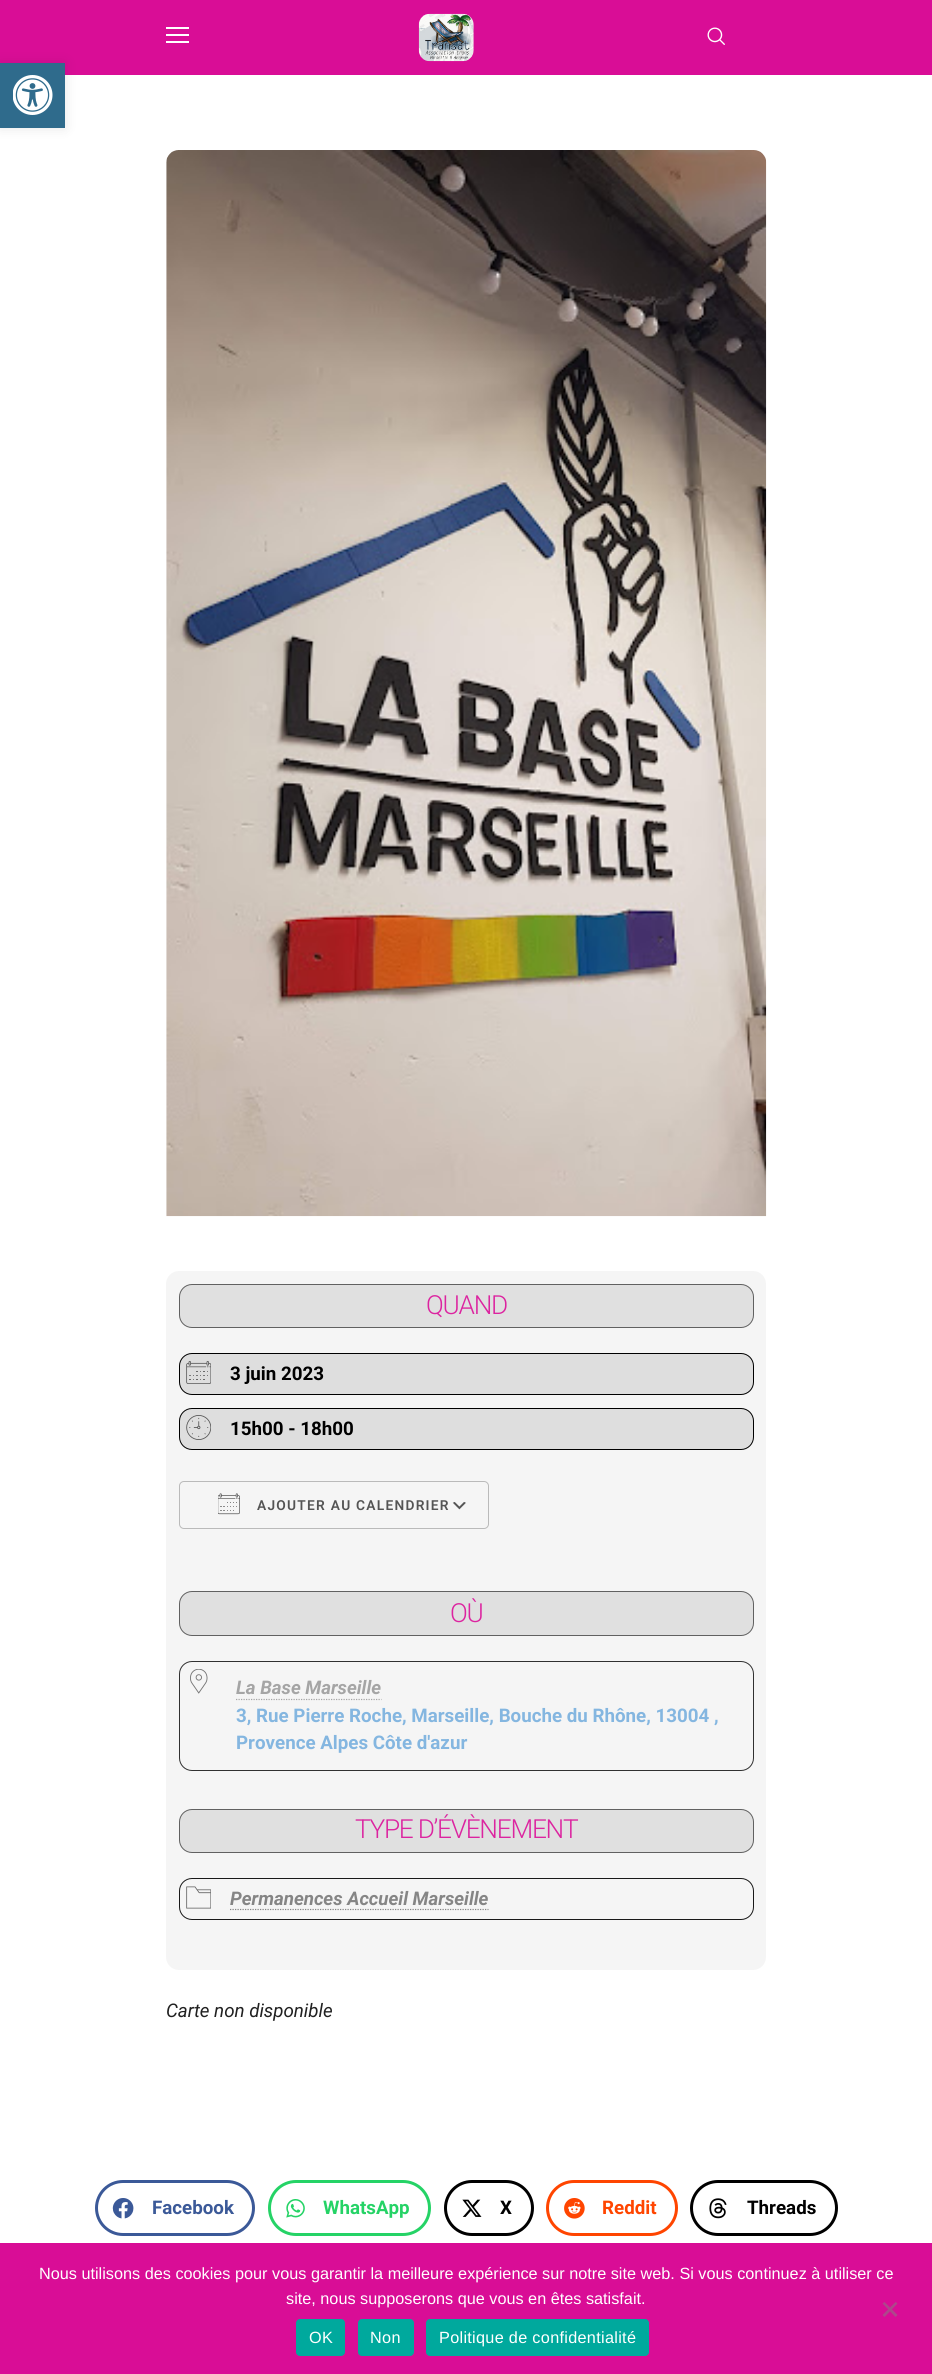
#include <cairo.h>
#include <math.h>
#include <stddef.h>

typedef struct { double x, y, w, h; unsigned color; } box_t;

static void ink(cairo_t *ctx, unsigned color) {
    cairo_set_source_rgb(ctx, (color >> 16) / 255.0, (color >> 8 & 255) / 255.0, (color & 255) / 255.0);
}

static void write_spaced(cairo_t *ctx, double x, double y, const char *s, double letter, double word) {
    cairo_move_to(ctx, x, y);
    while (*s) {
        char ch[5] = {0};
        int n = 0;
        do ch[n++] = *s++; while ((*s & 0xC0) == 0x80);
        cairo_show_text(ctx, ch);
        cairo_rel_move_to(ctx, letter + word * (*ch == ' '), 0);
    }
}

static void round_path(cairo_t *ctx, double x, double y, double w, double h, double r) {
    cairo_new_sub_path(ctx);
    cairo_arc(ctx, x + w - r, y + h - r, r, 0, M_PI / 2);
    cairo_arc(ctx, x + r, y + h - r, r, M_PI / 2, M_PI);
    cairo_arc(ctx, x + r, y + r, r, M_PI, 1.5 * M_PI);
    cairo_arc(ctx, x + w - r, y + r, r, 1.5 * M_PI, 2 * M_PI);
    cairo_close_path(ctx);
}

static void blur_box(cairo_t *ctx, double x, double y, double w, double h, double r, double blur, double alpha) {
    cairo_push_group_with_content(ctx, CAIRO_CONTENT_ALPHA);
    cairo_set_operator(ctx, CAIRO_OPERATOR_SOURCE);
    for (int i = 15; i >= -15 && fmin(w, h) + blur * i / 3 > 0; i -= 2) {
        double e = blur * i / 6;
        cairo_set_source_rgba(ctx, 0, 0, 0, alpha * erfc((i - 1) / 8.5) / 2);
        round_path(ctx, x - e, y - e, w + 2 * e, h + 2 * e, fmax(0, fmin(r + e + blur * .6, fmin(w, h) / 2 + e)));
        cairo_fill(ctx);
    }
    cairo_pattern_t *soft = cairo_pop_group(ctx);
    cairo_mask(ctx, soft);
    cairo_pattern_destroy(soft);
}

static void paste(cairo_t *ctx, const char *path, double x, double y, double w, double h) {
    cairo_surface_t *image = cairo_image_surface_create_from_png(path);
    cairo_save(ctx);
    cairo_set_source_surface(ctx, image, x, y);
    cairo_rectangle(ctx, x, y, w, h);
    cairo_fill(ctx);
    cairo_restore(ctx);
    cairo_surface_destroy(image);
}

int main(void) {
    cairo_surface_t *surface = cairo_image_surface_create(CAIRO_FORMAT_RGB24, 932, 2374);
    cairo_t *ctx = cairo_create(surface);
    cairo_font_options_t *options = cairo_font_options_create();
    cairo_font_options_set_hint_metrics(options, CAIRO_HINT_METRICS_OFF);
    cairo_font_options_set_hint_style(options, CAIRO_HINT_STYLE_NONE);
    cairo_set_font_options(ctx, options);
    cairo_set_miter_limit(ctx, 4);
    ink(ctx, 0xFFFFFF);
    cairo_paint(ctx);
    ink(ctx, 0xD90D96);
    cairo_rectangle(ctx, 0, 0, 932, 75);
    cairo_fill(ctx);
    ink(ctx, 0x000000);
    blur_box(ctx, 0, 63, 65, 65, 0, 6, 0.1);
    ink(ctx, 0x2F6B8C);
    cairo_rectangle(ctx, 0, 63, 65, 65);
    cairo_fill(ctx);
    paste(ctx, "media/1.png", 13, 75, 40, 40);
    {
        static const box_t items[] = {
            {166, 27, 23, 2, 0xFFFFFF},
            {166, 34, 23, 2, 0xFFFFFF},
            {166, 41, 23, 2, 0xFFFFFF},
        };
        for (size_t i = 0; i < sizeof items / sizeof *items; i++) {
            ink(ctx, items[i].color);
            cairo_rectangle(ctx, items[i].x, items[i].y, items[i].w, items[i].h);
            cairo_fill(ctx);
        }
    }
    paste(ctx, "media/2.png", 418, 13, 56, 49);
    paste(ctx, "media/3.png", 707, 27, 18, 18);
    paste(ctx, "media/4.png", 166, 150, 601, 1067);
    ink(ctx, 0xF5F5F5);
    round_path(ctx, 166, 1271, 600, 699, 13);
    cairo_fill(ctx);
    ink(ctx, 0xE0E0E0);
    round_path(ctx, 179.5, 1284.5, 574, 43, 12.5);
    cairo_fill_preserve(ctx);
    ink(ctx, 0x616161);
    cairo_set_line_width(ctx, 1);
    cairo_stroke(ctx);
    cairo_select_font_face(ctx, "Roboto Light", CAIRO_FONT_SLANT_NORMAL, CAIRO_FONT_WEIGHT_NORMAL);
    cairo_set_font_size(ctx, 26.25);
    ink(ctx, 0xDC24A0);
    write_spaced(ctx, 426, 1314, "QUAND", -1.25, 0);
    ink(ctx, 0xDEDEDE);
    round_path(ctx, 179.5, 1353.5, 574, 41, 12.5);
    cairo_fill_preserve(ctx);
    ink(ctx, 0x000000);
    cairo_stroke(ctx);
    paste(ctx, "media/5.png", 186, 1361, 25, 23);
    cairo_select_font_face(ctx, "Roboto", CAIRO_FONT_SLANT_NORMAL, CAIRO_FONT_WEIGHT_BOLD);
    cairo_set_font_size(ctx, 18.75);
    cairo_move_to(ctx, 230, 1380);
    cairo_show_text(ctx, "3 juin 2023");
    ink(ctx, 0xDEDEDE);
    round_path(ctx, 179.5, 1408.5, 574, 41, 12.5);
    cairo_fill_preserve(ctx);
    ink(ctx, 0x000000);
    cairo_stroke(ctx);
    paste(ctx, "media/6.png", 186, 1415, 25, 25);
    cairo_move_to(ctx, 230, 1435);
    cairo_show_text(ctx, "15h00 - 18h00");
    paste(ctx, "media/7.png", 452, 1502, 14, 8);
    round_path(ctx, 179.5, 1481.5, 309, 47, 4.5);
    ink(ctx, 0xBABABA);
    cairo_stroke(ctx);
    paste(ctx, "media/8.png", 218, 1493, 22, 22);
    cairo_select_font_face(ctx, "Roboto SemiBold", CAIRO_FONT_SLANT_NORMAL, CAIRO_FONT_WEIGHT_NORMAL);
    cairo_set_font_size(ctx, 13.75);
    ink(ctx, 0x545454);
    write_spaced(ctx, 257, 1510, "AJOUTER AU CALENDRIER", 1.25, 0);
    ink(ctx, 0xE0E0E0);
    round_path(ctx, 179.5, 1591.5, 574, 44, 12.5);
    cairo_fill_preserve(ctx);
    ink(ctx, 0x616161);
    cairo_stroke(ctx);
    cairo_select_font_face(ctx, "Roboto Light", CAIRO_FONT_SLANT_NORMAL, CAIRO_FONT_WEIGHT_NORMAL);
    cairo_set_font_size(ctx, 26.25);
    ink(ctx, 0xDC24A0);
    write_spaced(ctx, 450, 1622, "OÙ", -1.25, 0);
    round_path(ctx, 179.5, 1661.5, 574, 109, 12.5);
    ink(ctx, 0x313131);
    cairo_stroke(ctx);
    paste(ctx, "media/9.png", 190, 1669, 18, 25);
    cairo_select_font_face(ctx, "Roboto", CAIRO_FONT_SLANT_ITALIC, CAIRO_FONT_WEIGHT_BOLD);
    cairo_set_font_size(ctx, 18.75);
    ink(ctx, 0xA5A5A5);
    cairo_move_to(ctx, 236, 1694);
    cairo_show_text(ctx, "La Base Marseille");
    cairo_new_path(ctx);
    cairo_move_to(ctx, 236, 1699.5);
    cairo_line_to(ctx, 381.5, 1699.5);
    cairo_set_line_width(ctx, 1.2);
    cairo_set_dash(ctx, (double[]){1.25, 1.25}, 2, 0);
    cairo_stroke(ctx);
    cairo_select_font_face(ctx, "Roboto", CAIRO_FONT_SLANT_NORMAL, CAIRO_FONT_WEIGHT_BOLD);
    ink(ctx, 0x84B6E0);
    cairo_move_to(ctx, 236, 1722);
    cairo_show_text(ctx, "3, Rue Pierre Roche, Marseille, Bouche du Rhône, 13004 ,");
    cairo_move_to(ctx, 236, 1749);
    cairo_show_text(ctx, "Provence Alpes Côte d'azur");
    ink(ctx, 0xE0E0E0);
    round_path(ctx, 179.5, 1809.5, 574, 43, 12.5);
    cairo_fill_preserve(ctx);
    ink(ctx, 0x616161);
    cairo_set_line_width(ctx, 1);
    cairo_set_dash(ctx, NULL, 0, 0);
    cairo_stroke(ctx);
    cairo_select_font_face(ctx, "Roboto Light", CAIRO_FONT_SLANT_NORMAL, CAIRO_FONT_WEIGHT_NORMAL);
    cairo_set_font_size(ctx, 26.25);
    ink(ctx, 0xDC24A0);
    write_spaced(ctx, 355, 1838, "TYPE D’ÉVÈNEMENT", -1.25, 0);
    round_path(ctx, 179.5, 1878.5, 574, 41, 12.5);
    ink(ctx, 0x191919);
    cairo_stroke(ctx);
    paste(ctx, "media/10.png", 186, 1886, 25, 23);
    cairo_select_font_face(ctx, "Roboto", CAIRO_FONT_SLANT_ITALIC, CAIRO_FONT_WEIGHT_BOLD);
    cairo_set_font_size(ctx, 18.75);
    ink(ctx, 0x858585);
    cairo_move_to(ctx, 230, 1905);
    cairo_show_text(ctx, "Permanences Accueil Marseille");
    cairo_new_path(ctx);
    cairo_move_to(ctx, 230, 1909.5);
    cairo_line_to(ctx, 488.5, 1909.5);
    cairo_set_line_width(ctx, 1.2);
    cairo_set_dash(ctx, (double[]){1.25, 1.25}, 2, 0);
    cairo_stroke(ctx);
    cairo_select_font_face(ctx, "Roboto", CAIRO_FONT_SLANT_ITALIC, CAIRO_FONT_WEIGHT_NORMAL);
    ink(ctx, 0x212121);
    cairo_move_to(ctx, 166, 2017);
    cairo_show_text(ctx, "Carte non disponible");
    round_path(ctx, 96.5, 2181.5, 157, 53, 26.5);
    ink(ctx, 0x3B5998);
    cairo_set_line_width(ctx, 3);
    cairo_set_dash(ctx, NULL, 0, 0);
    cairo_stroke(ctx);
    paste(ctx, "media/11.png", 112, 2198, 22, 21);
    cairo_select_font_face(ctx, "Roboto", CAIRO_FONT_SLANT_NORMAL, CAIRO_FONT_WEIGHT_BOLD);
    cairo_move_to(ctx, 152, 2214);
    cairo_show_text(ctx, "Facebook");
    round_path(ctx, 269.5, 2181.5, 160, 53, 26.5);
    ink(ctx, 0x25D366);
    cairo_stroke(ctx);
    paste(ctx, "media/12.png", 286, 2199, 19, 19);
    cairo_move_to(ctx, 323, 2214);
    cairo_show_text(ctx, "WhatsApp");
    round_path(ctx, 445.5, 2181.5, 87, 53, 26.5);
    ink(ctx, 0x000000);
    cairo_stroke(ctx);
    paste(ctx, "media/13.png", 462, 2199, 20, 18);
    cairo_move_to(ctx, 500, 2214);
    cairo_show_text(ctx, "X");
    round_path(ctx, 547.5, 2181.5, 129, 53, 26.5);
    ink(ctx, 0xFF4500);
    cairo_stroke(ctx);
    paste(ctx, "media/14.png", 564, 2198, 21, 21);
    cairo_move_to(ctx, 602, 2214);
    cairo_show_text(ctx, "Reddit");
    round_path(ctx, 691.5, 2181.5, 145, 53, 26.5);
    ink(ctx, 0x000000);
    cairo_stroke(ctx);
    paste(ctx, "media/15.png", 709, 2198, 18, 21);
    cairo_move_to(ctx, 747, 2214);
    cairo_show_text(ctx, "Threads");
    ink(ctx, 0xD90D96);
    cairo_rectangle(ctx, 0, 2243, 932, 131);
    cairo_fill(ctx);
    cairo_select_font_face(ctx, "Liberation Sans", CAIRO_FONT_SLANT_NORMAL, CAIRO_FONT_WEIGHT_NORMAL);
    cairo_set_font_size(ctx, 16.25);
    ink(ctx, 0xFFFFFF);
    cairo_move_to(ctx, 39, 2279);
    cairo_show_text(ctx, "Nous utilisons des cookies pour vous garantir la meilleure expérience sur notre site web. Si vous continuez à utiliser ce");
    cairo_move_to(ctx, 286, 2304);
    cairo_show_text(ctx, "site, nous supposerons que vous en êtes satisfait.");
    ink(ctx, 0xAD478B);
    cairo_new_path(ctx);
    cairo_move_to(ctx, 895.5, 2302);
    cairo_line_to(ctx, 897.5, 2303.5);
    cairo_line_to(ctx, 884.5, 2317);
    cairo_line_to(ctx, 882.5, 2315);
    cairo_close_path(ctx);
    cairo_fill(ctx);
    cairo_new_path(ctx);
    cairo_move_to(ctx, 882.5, 2303.5);
    cairo_line_to(ctx, 884.5, 2302);
    cairo_line_to(ctx, 897.5, 2315);
    cairo_line_to(ctx, 895.5, 2317);
    cairo_close_path(ctx);
    cairo_fill(ctx);
    ink(ctx, 0x00A99D);
    round_path(ctx, 296, 2319, 49, 37, 4);
    cairo_fill(ctx);
    ink(ctx, 0xFFFFFF);
    write_spaced(ctx, 309, 2343, "OK", 0.3, 0);
    ink(ctx, 0x00A99D);
    round_path(ctx, 358, 2319, 56, 37, 4);
    cairo_fill(ctx);
    ink(ctx, 0xFFFFFF);
    write_spaced(ctx, 370, 2343, "Non", 0.3, 0);
    ink(ctx, 0x00A99D);
    round_path(ctx, 426, 2319, 223, 37, 4);
    cairo_fill(ctx);
    ink(ctx, 0xFFFFFF);
    write_spaced(ctx, 439, 2343, "Politique de confidentialité", 0.3, 0);
    cairo_surface_write_to_png(surface, "image.png");
    cairo_font_options_destroy(options);
    cairo_destroy(ctx);
    cairo_surface_destroy(surface);
    return 0;
}
